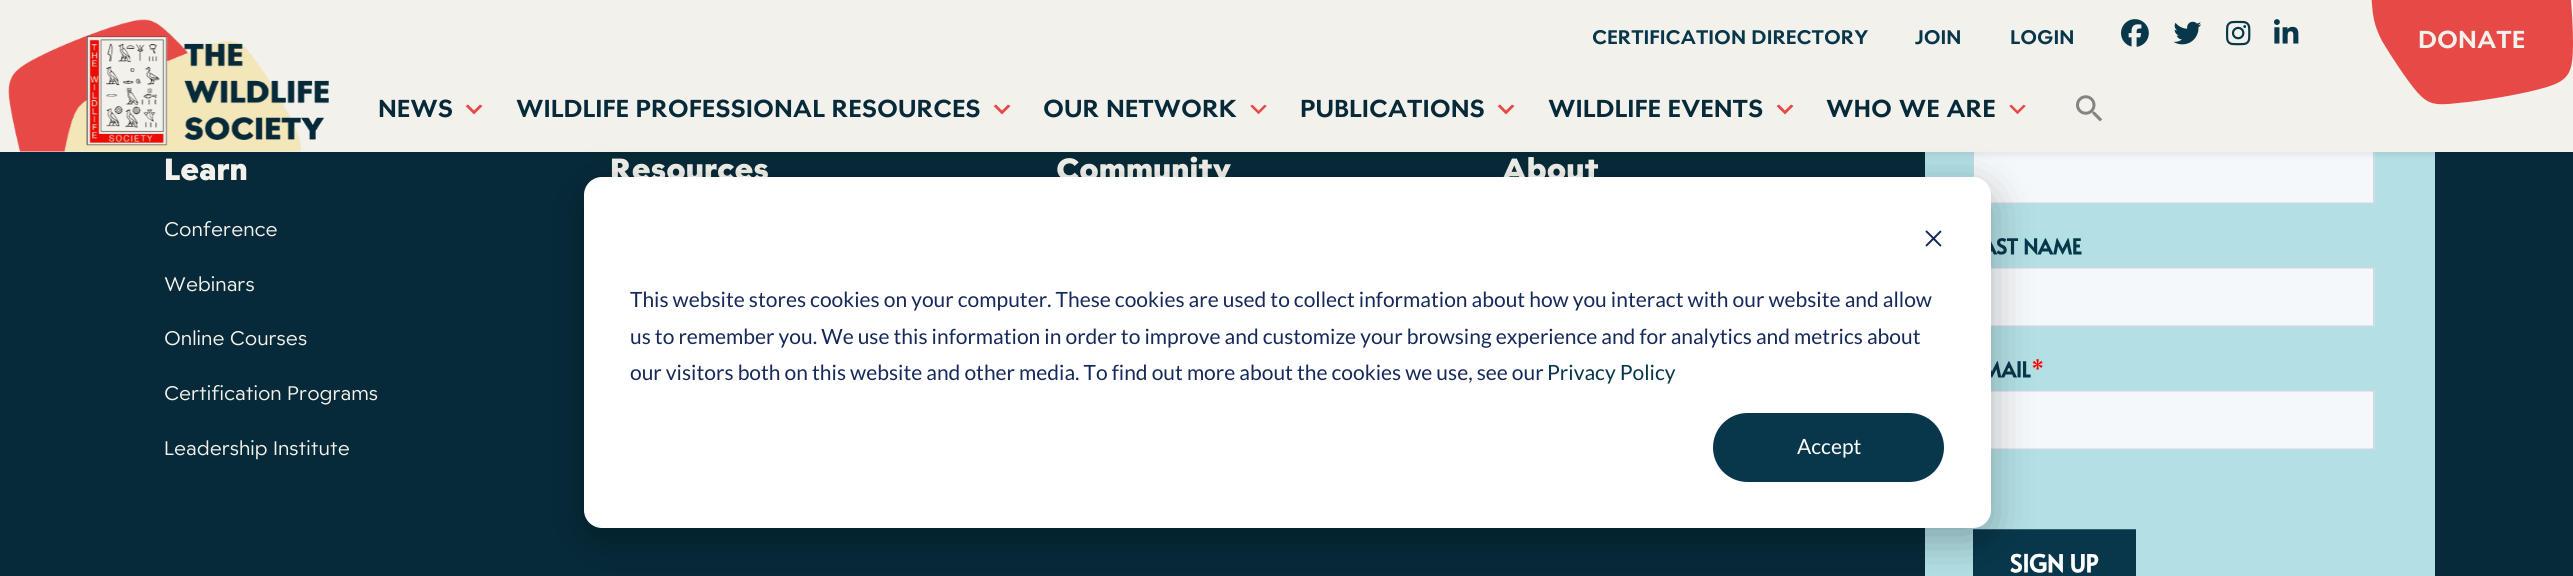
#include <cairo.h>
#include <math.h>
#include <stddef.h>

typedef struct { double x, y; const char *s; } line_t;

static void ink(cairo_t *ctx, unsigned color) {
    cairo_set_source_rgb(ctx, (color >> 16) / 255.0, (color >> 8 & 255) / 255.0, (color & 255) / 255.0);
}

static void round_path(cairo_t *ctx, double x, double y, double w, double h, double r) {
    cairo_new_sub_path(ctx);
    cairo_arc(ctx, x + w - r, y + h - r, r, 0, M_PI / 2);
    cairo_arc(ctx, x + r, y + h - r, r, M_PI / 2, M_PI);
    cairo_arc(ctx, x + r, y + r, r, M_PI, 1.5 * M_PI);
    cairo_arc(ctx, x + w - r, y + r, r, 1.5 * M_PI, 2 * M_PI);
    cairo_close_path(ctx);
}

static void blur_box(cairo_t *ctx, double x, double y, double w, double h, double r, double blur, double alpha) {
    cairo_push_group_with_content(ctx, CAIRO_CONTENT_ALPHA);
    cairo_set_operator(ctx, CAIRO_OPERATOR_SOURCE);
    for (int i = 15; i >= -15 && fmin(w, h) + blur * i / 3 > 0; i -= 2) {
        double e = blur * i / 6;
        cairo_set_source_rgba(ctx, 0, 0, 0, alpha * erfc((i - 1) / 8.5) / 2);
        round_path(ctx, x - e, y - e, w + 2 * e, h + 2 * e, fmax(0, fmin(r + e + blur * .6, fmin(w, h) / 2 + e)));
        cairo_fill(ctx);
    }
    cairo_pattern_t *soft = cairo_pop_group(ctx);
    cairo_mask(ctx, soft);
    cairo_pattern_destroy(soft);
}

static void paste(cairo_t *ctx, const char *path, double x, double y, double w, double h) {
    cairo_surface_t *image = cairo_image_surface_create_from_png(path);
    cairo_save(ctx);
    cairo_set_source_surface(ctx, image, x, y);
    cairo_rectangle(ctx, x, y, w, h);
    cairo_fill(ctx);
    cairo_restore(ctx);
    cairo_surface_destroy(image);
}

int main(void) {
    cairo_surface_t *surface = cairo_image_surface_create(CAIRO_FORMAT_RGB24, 2573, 576);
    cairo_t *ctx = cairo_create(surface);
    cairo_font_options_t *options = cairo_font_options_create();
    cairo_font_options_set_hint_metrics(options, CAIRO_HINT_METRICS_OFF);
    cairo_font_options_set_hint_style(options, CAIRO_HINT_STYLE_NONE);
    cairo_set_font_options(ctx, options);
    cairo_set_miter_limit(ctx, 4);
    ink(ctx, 0x062A39);
    cairo_paint(ctx);
    ink(ctx, 0xB2E0E5);
    cairo_rectangle(ctx, 1925, 152, 510, 424);
    cairo_fill(ctx);
    paste(ctx, "media/8.png", 1973, 152, 402, 424);
    ink(ctx, 0x000000);
    blur_box(ctx, -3, 3, 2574, 152, 0, 3, 0.08);
    ink(ctx, 0xF3F1EB);
    cairo_rectangle(ctx, 0, 0, 2573, 152);
    cairo_fill(ctx);
    paste(ctx, "media/1.png", 8, 19, 321, 133);
    cairo_select_font_face(ctx, "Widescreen", CAIRO_FONT_SLANT_NORMAL, CAIRO_FONT_WEIGHT_BOLD);
    cairo_set_font_size(ctx, 19.25);
    ink(ctx, 0x08374B);
    {
        static const line_t items[] = {
            {1592, 44, "CERTIFICATION DIRECTORY"},
            {1915, 44, "JOIN"},
            {2010, 44, "LOGIN"},
        };
        for (size_t i = 0; i < sizeof items / sizeof *items; i++) {
            cairo_move_to(ctx, items[i].x, items[i].y);
            cairo_show_text(ctx, items[i].s);
        }
    }
    paste(ctx, "media/2.png", 2121, 19, 28, 28);
    paste(ctx, "media/3.png", 2173, 21, 29, 24);
    paste(ctx, "media/4.png", 2226, 20, 25, 26);
    paste(ctx, "media/5.png", 2274, 19, 25, 25);
    ink(ctx, 0xE64946);
    cairo_new_path(ctx);
    cairo_move_to(ctx, 2563, -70);
    cairo_curve_to(ctx, 2557, -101, 2551, -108, 2522, -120);
    cairo_curve_to(ctx, 2492, -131, 2439, -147, 2409, -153);
    cairo_curve_to(ctx, 2380, -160, 2374, -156, 2372, -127);
    cairo_curve_to(ctx, 2369, -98, 2370, -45, 2371, -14);
    cairo_curve_to(ctx, 2372, 17, 2374, 25, 2382, 41);
    cairo_curve_to(ctx, 2391, 56, 2406, 79, 2417, 92);
    cairo_curve_to(ctx, 2428, 104, 2434, 106, 2458, 103);
    cairo_curve_to(ctx, 2482, 101, 2524, 94, 2547, 87);
    cairo_curve_to(ctx, 2569, 80, 2573, 73, 2573, 43);
    cairo_curve_to(ctx, 2573, 13, 2568, -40, 2563, -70);
    cairo_close_path(ctx);
    cairo_fill(ctx);
    cairo_set_font_size(ctx, 24);
    ink(ctx, 0xF3F1EB);
    cairo_move_to(ctx, 2418, 48);
    cairo_show_text(ctx, "DONATE");
    ink(ctx, 0x062A39);
    cairo_move_to(ctx, 378, 117);
    cairo_show_text(ctx, "NEWS");
    ink(ctx, 0xE64946);
    cairo_new_path(ctx);
    cairo_move_to(ctx, 468, 104.5);
    cairo_line_to(ctx, 474, 110.5);
    cairo_line_to(ctx, 480, 104.5);
    cairo_line_to(ctx, 482.5, 106);
    cairo_line_to(ctx, 474, 114.5);
    cairo_line_to(ctx, 465.5, 106);
    cairo_close_path(ctx);
    cairo_fill(ctx);
    ink(ctx, 0x062A39);
    cairo_move_to(ctx, 516, 117);
    cairo_show_text(ctx, "WILDLIFE PROFESSIONAL RESOURCES");
    ink(ctx, 0xE64946);
    cairo_new_path(ctx);
    cairo_move_to(ctx, 996, 104.5);
    cairo_line_to(ctx, 1002, 110.5);
    cairo_line_to(ctx, 1008, 104.5);
    cairo_line_to(ctx, 1010.5, 106);
    cairo_line_to(ctx, 1002, 114.5);
    cairo_line_to(ctx, 993.5, 106);
    cairo_close_path(ctx);
    cairo_fill(ctx);
    ink(ctx, 0x062A39);
    cairo_move_to(ctx, 1043, 117);
    cairo_show_text(ctx, "OUR NETWORK");
    paste(ctx, "media/6.png", 1250, 104, 17, 11);
    cairo_move_to(ctx, 1300, 117);
    cairo_show_text(ctx, "PUBLICATIONS");
    ink(ctx, 0xE64946);
    cairo_new_path(ctx);
    cairo_move_to(ctx, 1500, 104.5);
    cairo_line_to(ctx, 1506, 110.5);
    cairo_line_to(ctx, 1512, 104.5);
    cairo_line_to(ctx, 1514.5, 106);
    cairo_line_to(ctx, 1506, 114.5);
    cairo_line_to(ctx, 1497.5, 106);
    cairo_close_path(ctx);
    cairo_fill(ctx);
    ink(ctx, 0x062A39);
    cairo_move_to(ctx, 1548, 117);
    cairo_show_text(ctx, "WILDLIFE EVENTS");
    ink(ctx, 0xE64946);
    cairo_new_path(ctx);
    cairo_move_to(ctx, 1779, 104.5);
    cairo_line_to(ctx, 1785, 110.5);
    cairo_line_to(ctx, 1791, 104.5);
    cairo_line_to(ctx, 1793.5, 106);
    cairo_line_to(ctx, 1785, 114.5);
    cairo_line_to(ctx, 1776.5, 106);
    cairo_close_path(ctx);
    cairo_fill(ctx);
    ink(ctx, 0x062A39);
    cairo_move_to(ctx, 1826, 117);
    cairo_show_text(ctx, "WHO WE ARE");
    paste(ctx, "media/6.png", 2009, 104, 17, 11);
    paste(ctx, "media/7.png", 2076, 95, 27, 27);
    cairo_select_font_face(ctx, "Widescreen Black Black", CAIRO_FONT_SLANT_NORMAL, CAIRO_FONT_WEIGHT_NORMAL);
    cairo_set_font_size(ctx, 30);
    ink(ctx, 0xF3F1EB);
    cairo_move_to(ctx, 164, 180);
    cairo_show_text(ctx, "Learn");
    cairo_select_font_face(ctx, "Widescreen", CAIRO_FONT_SLANT_NORMAL, CAIRO_FONT_WEIGHT_NORMAL);
    cairo_set_font_size(ctx, 19.25);
    {
        static const line_t items[] = {
            {164, 236, "Conference"},
            {164, 291, "Webinars"},
            {164, 345, "Online Courses"},
            {164, 400, "Certification Programs"},
            {164, 455, "Leadership Institute"},
        };
        for (size_t i = 0; i < sizeof items / sizeof *items; i++) {
            cairo_move_to(ctx, items[i].x, items[i].y);
            cairo_show_text(ctx, items[i].s);
        }
    }
    cairo_select_font_face(ctx, "Widescreen Black Black", CAIRO_FONT_SLANT_NORMAL, CAIRO_FONT_WEIGHT_NORMAL);
    cairo_set_font_size(ctx, 30);
    {
        static const line_t items[] = {
            {610, 180, "Resources"},
            {1056, 180, "Community"},
            {1502, 180, "About"},
        };
        for (size_t i = 0; i < sizeof items / sizeof *items; i++) {
            cairo_move_to(ctx, items[i].x, items[i].y);
            cairo_show_text(ctx, items[i].s);
        }
    }
    ink(ctx, 0x000000);
    blur_box(ctx, 584, 189, 1407, 351, 18, 21, 0.28);
    ink(ctx, 0xFFFFFF);
    round_path(ctx, 584, 177, 1407, 351, 18);
    cairo_fill(ctx);
    paste(ctx, "media/9.png", 1925, 230, 17, 17);
    cairo_select_font_face(ctx, "Lato", CAIRO_FONT_SLANT_NORMAL, CAIRO_FONT_WEIGHT_NORMAL);
    cairo_set_font_size(ctx, 21);
    ink(ctx, 0x15295A);
    {
        static const line_t items[] = {
            {630, 307, "This website stores cookies on your computer. These cookies are used to collect information about how you interact with our website and allow"},
            {630, 344, "us to remember you. We use this information in order to improve and customize your browsing experience and for analytics and metrics about"},
            {630, 380, "our visitors both on this website and other media. To find out more about the cookies we use, see our"},
        };
        for (size_t i = 0; i < sizeof items / sizeof *items; i++) {
            cairo_move_to(ctx, items[i].x, items[i].y);
            cairo_show_text(ctx, items[i].s);
        }
    }
    ink(ctx, 0x08374B);
    cairo_move_to(ctx, 1547, 380);
    cairo_show_text(ctx, "Privacy Policy");
    round_path(ctx, 1714, 414, 229, 67, 33.5);
    cairo_fill_preserve(ctx);
    cairo_stroke(ctx);
    ink(ctx, 0xFFFFFF);
    cairo_move_to(ctx, 1797, 454);
    cairo_show_text(ctx, "Accept");
    cairo_surface_write_to_png(surface, "image.png");
    cairo_font_options_destroy(options);
    cairo_destroy(ctx);
    cairo_surface_destroy(surface);
    return 0;
}
